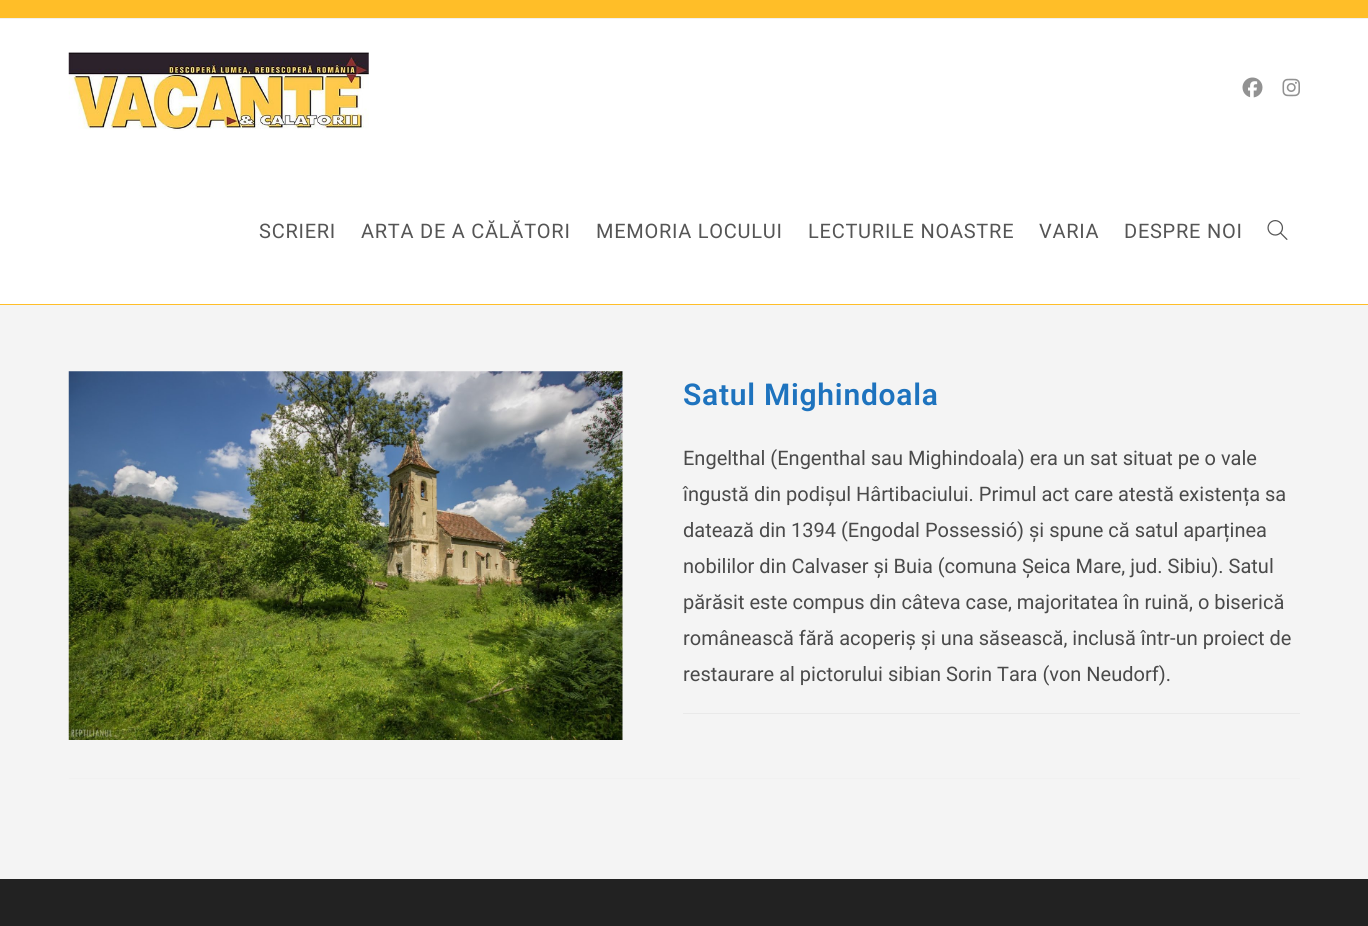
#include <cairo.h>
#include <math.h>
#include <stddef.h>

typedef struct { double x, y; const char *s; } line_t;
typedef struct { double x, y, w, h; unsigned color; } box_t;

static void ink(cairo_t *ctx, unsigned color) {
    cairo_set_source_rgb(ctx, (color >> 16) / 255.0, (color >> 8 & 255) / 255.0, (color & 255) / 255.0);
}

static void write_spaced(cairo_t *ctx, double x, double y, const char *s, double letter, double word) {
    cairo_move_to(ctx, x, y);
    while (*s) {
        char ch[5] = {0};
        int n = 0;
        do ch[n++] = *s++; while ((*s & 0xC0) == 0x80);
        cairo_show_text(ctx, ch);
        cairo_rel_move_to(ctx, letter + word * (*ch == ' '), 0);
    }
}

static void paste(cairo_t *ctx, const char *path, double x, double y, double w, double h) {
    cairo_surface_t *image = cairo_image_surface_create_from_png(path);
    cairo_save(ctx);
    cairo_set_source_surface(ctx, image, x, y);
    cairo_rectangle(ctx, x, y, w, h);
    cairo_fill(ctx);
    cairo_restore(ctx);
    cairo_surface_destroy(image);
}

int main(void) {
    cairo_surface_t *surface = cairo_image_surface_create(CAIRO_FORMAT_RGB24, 1368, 926);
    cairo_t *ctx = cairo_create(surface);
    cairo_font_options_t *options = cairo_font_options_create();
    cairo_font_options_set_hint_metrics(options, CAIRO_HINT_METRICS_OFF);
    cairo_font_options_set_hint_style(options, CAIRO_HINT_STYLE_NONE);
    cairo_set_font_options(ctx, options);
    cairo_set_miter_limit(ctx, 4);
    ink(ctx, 0xF4F4F4);
    cairo_paint(ctx);
    {
        static const box_t items[] = {
            {0, 0, 1368, 18, 0xFFBE28},
            {0, 18, 1368, 1, 0xF1F1F1},
            {0, 19, 1368, 285, 0xFFFFFF},
            {0, 304, 1368, 1, 0xFFBE28},
        };
        for (size_t i = 0; i < sizeof items / sizeof *items; i++) {
            ink(ctx, items[i].color);
            cairo_rectangle(ctx, items[i].x, items[i].y, items[i].w, items[i].h);
            cairo_fill(ctx);
        }
    }
    paste(ctx, "media/1.png", 68, 52, 301, 79);
    paste(ctx, "media/2.png", 1242, 77, 21, 21);
    paste(ctx, "media/3.png", 1282, 78, 18, 19);
    cairo_select_font_face(ctx, "Roboto", CAIRO_FONT_SLANT_NORMAL, CAIRO_FONT_WEIGHT_NORMAL);
    cairo_set_font_size(ctx, 20);
    ink(ctx, 0x555555);
    {
        static const line_t items[] = {
            {259, 238, "SCRIERI"},
            {361, 238, "ARTA DE A CĂLĂTORI"},
            {596, 238, "MEMORIA LOCULUI"},
            {808, 238, "LECTURILE NOASTRE"},
            {1039, 238, "VARIA"},
            {1124, 238, "DESPRE NOI"},
        };
        for (size_t i = 0; i < sizeof items / sizeof *items; i++) {
            write_spaced(ctx, items[i].x, items[i].y, items[i].s, 0.75, 0);
        }
    }
    paste(ctx, "media/4.png", 1267, 220, 21, 20);
    ink(ctx, 0xF1F1F1);
    cairo_rectangle(ctx, 69, 778, 1231, 1);
    cairo_fill(ctx);
    paste(ctx, "media/5.png", 68, 371, 555, 369);
    cairo_select_font_face(ctx, "Roboto SemiBold", CAIRO_FONT_SLANT_NORMAL, CAIRO_FONT_WEIGHT_NORMAL);
    cairo_set_font_size(ctx, 30);
    ink(ctx, 0x1E73BE);
    write_spaced(ctx, 683, 405, "Satul Mighindoala", 0.75, 0);
    cairo_select_font_face(ctx, "Roboto", CAIRO_FONT_SLANT_NORMAL, CAIRO_FONT_WEIGHT_NORMAL);
    cairo_set_font_size(ctx, 20);
    ink(ctx, 0x4A4A4A);
    {
        static const line_t items[] = {
            {683, 465, "Engelthal (Engenthal sau Mighindoala) era un sat situat pe o vale"},
            {683, 501, "îngustă din podișul Hârtibaciului. Primul act care atestă existența sa"},
            {683, 537, "datează din 1394 (Engodal Possessió) și spune că satul aparținea"},
            {683, 573, "nobililor din Calvaser și Buia (comuna Șeica Mare, jud. Sibiu). Satul"},
            {683, 609, "părăsit este compus din câteva case, majoritatea în ruină, o biserică"},
            {683, 645, "românească fără acoperiș și una săsească, inclusă într-un proiect de"},
            {683, 681, "restaurare al pictorului sibian Sorin Tara (von Neudorf)."},
        };
        for (size_t i = 0; i < sizeof items / sizeof *items; i++) {
            cairo_move_to(ctx, items[i].x, items[i].y);
            cairo_show_text(ctx, items[i].s);
        }
    }
    ink(ctx, 0xE9E9E9);
    cairo_rectangle(ctx, 683, 713, 617, 1);
    cairo_fill(ctx);
    ink(ctx, 0x222222);
    cairo_rectangle(ctx, 0, 879, 1368, 47);
    cairo_fill(ctx);
    cairo_surface_write_to_png(surface, "image.png");
    cairo_font_options_destroy(options);
    cairo_destroy(ctx);
    cairo_surface_destroy(surface);
    return 0;
}
